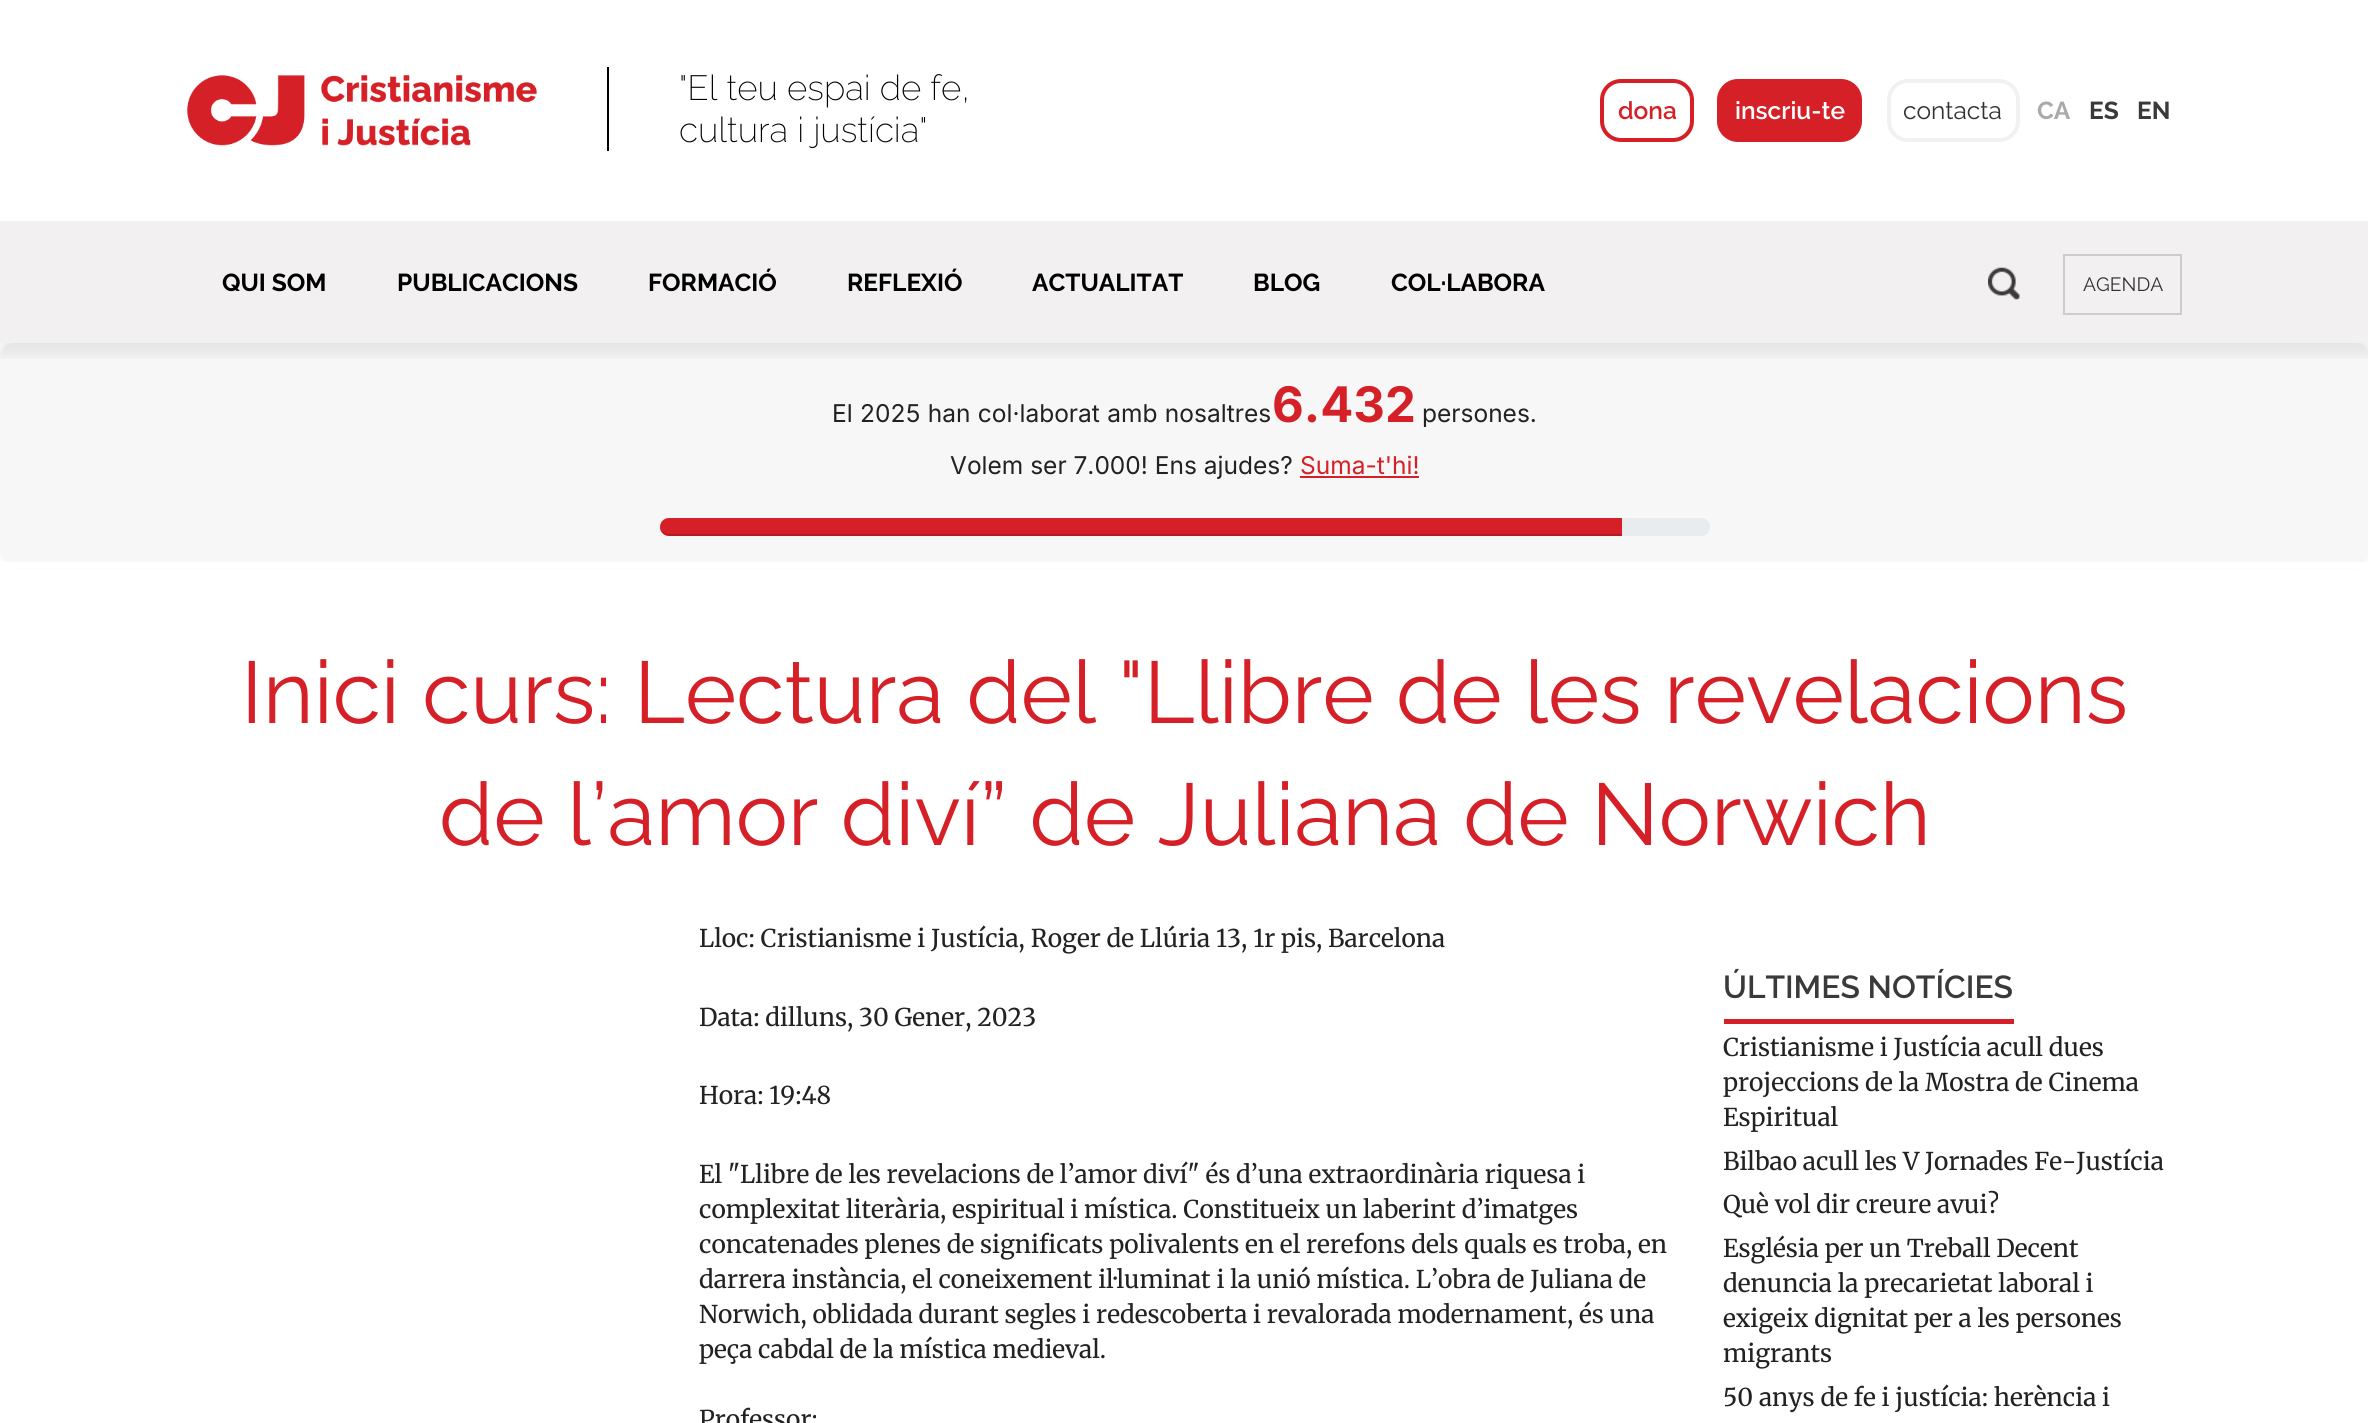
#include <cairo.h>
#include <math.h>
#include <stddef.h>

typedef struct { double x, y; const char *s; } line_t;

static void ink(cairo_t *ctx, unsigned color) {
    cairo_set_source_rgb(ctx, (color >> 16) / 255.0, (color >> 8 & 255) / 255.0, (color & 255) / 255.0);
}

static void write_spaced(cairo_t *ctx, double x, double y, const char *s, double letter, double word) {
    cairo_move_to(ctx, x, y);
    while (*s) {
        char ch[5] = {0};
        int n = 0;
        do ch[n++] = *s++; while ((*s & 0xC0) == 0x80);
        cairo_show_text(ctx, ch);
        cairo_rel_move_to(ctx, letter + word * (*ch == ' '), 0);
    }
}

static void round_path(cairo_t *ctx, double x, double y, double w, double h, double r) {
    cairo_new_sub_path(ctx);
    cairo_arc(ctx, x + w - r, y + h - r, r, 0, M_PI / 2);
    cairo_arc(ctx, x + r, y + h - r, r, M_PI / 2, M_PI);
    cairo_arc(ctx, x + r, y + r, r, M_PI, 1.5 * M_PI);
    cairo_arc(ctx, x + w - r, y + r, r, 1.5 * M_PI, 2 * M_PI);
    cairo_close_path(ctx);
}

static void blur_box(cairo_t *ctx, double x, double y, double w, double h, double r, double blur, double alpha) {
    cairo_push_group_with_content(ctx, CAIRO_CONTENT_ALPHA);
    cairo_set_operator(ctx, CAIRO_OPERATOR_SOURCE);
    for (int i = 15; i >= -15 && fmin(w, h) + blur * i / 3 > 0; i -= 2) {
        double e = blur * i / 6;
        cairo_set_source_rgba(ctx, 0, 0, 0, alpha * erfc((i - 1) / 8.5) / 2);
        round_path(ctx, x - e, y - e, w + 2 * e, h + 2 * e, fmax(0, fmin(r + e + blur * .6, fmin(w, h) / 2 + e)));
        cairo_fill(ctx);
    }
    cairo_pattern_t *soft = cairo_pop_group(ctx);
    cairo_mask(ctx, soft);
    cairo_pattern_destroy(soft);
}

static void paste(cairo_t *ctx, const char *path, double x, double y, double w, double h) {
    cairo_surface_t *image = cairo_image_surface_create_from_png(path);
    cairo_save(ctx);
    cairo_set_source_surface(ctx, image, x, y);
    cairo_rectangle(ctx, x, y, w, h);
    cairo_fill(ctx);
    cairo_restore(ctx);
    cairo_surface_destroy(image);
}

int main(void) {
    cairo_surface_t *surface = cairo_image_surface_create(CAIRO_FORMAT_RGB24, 2368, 1423);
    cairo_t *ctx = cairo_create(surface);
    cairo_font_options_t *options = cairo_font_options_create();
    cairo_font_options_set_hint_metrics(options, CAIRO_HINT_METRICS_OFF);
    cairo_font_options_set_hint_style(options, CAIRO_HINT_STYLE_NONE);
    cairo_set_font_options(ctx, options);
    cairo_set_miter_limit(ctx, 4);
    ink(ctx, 0xFFFFFF);
    cairo_paint(ctx);
    paste(ctx, "media/1.png", 187, 75, 350, 71);
    ink(ctx, 0x000000);
    cairo_rectangle(ctx, 607, 67, 2, 84);
    cairo_fill(ctx);
    cairo_select_font_face(ctx, "Raleway ExtraLight", CAIRO_FONT_SLANT_NORMAL, CAIRO_FONT_WEIGHT_NORMAL);
    cairo_set_font_size(ctx, 35);
    cairo_move_to(ctx, 679, 100);
    cairo_show_text(ctx, "\"El teu espai de fe,");
    cairo_move_to(ctx, 679, 142);
    cairo_show_text(ctx, "cultura i justícia\"");
    round_path(ctx, 1602, 81, 90, 59, 19);
    ink(ctx, 0xD52027);
    cairo_set_line_width(ctx, 4);
    cairo_stroke(ctx);
    cairo_select_font_face(ctx, "Raleway SemiBold", CAIRO_FONT_SLANT_NORMAL, CAIRO_FONT_WEIGHT_NORMAL);
    cairo_set_font_size(ctx, 24.5);
    cairo_move_to(ctx, 1618, 119);
    cairo_show_text(ctx, "dona");
    round_path(ctx, 1719, 81, 141, 59, 19);
    cairo_fill_preserve(ctx);
    cairo_stroke(ctx);
    ink(ctx, 0xFFFFFF);
    cairo_move_to(ctx, 1735, 119);
    cairo_show_text(ctx, "inscriu-te");
    round_path(ctx, 1889, 81, 129, 59, 19);
    ink(ctx, 0xF2F0F0);
    cairo_stroke(ctx);
    cairo_select_font_face(ctx, "Raleway", CAIRO_FONT_SLANT_NORMAL, CAIRO_FONT_WEIGHT_NORMAL);
    ink(ctx, 0x333333);
    cairo_move_to(ctx, 1903, 119);
    cairo_show_text(ctx, "contacta");
    cairo_select_font_face(ctx, "Raleway", CAIRO_FONT_SLANT_NORMAL, CAIRO_FONT_WEIGHT_BOLD);
    ink(ctx, 0xAAAAAA);
    cairo_move_to(ctx, 2037, 119);
    cairo_show_text(ctx, "CA");
    ink(ctx, 0x3A3A3A);
    cairo_move_to(ctx, 2089, 119);
    cairo_show_text(ctx, "ES");
    cairo_move_to(ctx, 2137, 119);
    cairo_show_text(ctx, "EN");
    ink(ctx, 0x000000);
    blur_box(ctx, 0, 347, 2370, 218, 14, 3.5, 0.05);
    ink(ctx, 0xF2F0F0);
    cairo_rectangle(ctx, 0, 221, 2368, 122);
    cairo_fill(ctx);
    paste(ctx, "media/2.png", 1988, 267, 32, 33);
    cairo_rectangle(ctx, 2064, 255, 117, 59);
    ink(ctx, 0xCCCCCC);
    cairo_set_line_width(ctx, 2);
    cairo_stroke(ctx);
    ink(ctx, 0xF7F7F7);
    round_path(ctx, 0, 343, 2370, 219, 14);
    cairo_fill(ctx);
    cairo_save(ctx);
    cairo_rectangle(ctx, 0, 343, 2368, 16);
    cairo_clip(ctx);
    ink(ctx, 0x000000);
    blur_box(ctx, 0, 231, 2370, 123, 0, 7, 0.08);
    cairo_restore(ctx);
    ink(ctx, 0x000000);
    {
        static const line_t items[] = {
            {222, 291, "QUI SOM"},
            {397, 291, "PUBLICACIONS"},
            {648, 291, "FORMACIÓ"},
            {847, 291, "REFLEXIÓ"},
            {1032, 291, "ACTUALITAT"},
            {1253, 291, "BLOG"},
            {1391, 291, "COL·LABORA"},
        };
        for (size_t i = 0; i < sizeof items / sizeof *items; i++) {
            cairo_move_to(ctx, items[i].x, items[i].y);
            cairo_show_text(ctx, items[i].s);
        }
    }
    cairo_select_font_face(ctx, "Raleway", CAIRO_FONT_SLANT_NORMAL, CAIRO_FONT_WEIGHT_NORMAL);
    cairo_set_font_size(ctx, 19.25);
    ink(ctx, 0x333333);
    cairo_move_to(ctx, 2083, 291);
    cairo_show_text(ctx, "AGENDA");
    cairo_select_font_face(ctx, "Inter", CAIRO_FONT_SLANT_NORMAL, CAIRO_FONT_WEIGHT_NORMAL);
    cairo_set_font_size(ctx, 24.5);
    ink(ctx, 0x222222);
    write_spaced(ctx, 832, 422, "El 2025 han col·laborat amb nosaltres", 0, 0.5);
    cairo_select_font_face(ctx, "Inter", CAIRO_FONT_SLANT_NORMAL, CAIRO_FONT_WEIGHT_BOLD);
    cairo_set_font_size(ctx, 49);
    ink(ctx, 0xD52027);
    cairo_move_to(ctx, 1272, 422);
    cairo_show_text(ctx, "6.432");
    cairo_select_font_face(ctx, "Inter", CAIRO_FONT_SLANT_NORMAL, CAIRO_FONT_WEIGHT_NORMAL);
    cairo_set_font_size(ctx, 24.5);
    ink(ctx, 0x222222);
    cairo_move_to(ctx, 1422, 422);
    cairo_show_text(ctx, "persones.");
    cairo_move_to(ctx, 950, 474);
    cairo_show_text(ctx, "Volem ser 7.000! Ens ajudes?");
    ink(ctx, 0xD52027);
    cairo_move_to(ctx, 1300, 474);
    cairo_show_text(ctx, "Suma-t'hi!");
    cairo_rectangle(ctx, 1300, 476, 119, 2);
    cairo_fill(ctx);
    ink(ctx, 0xE9ECEF);
    round_path(ctx, 660, 518, 1050, 18, 9);
    cairo_fill(ctx);
    ink(ctx, 0xD52027);
    cairo_new_path(ctx);
    cairo_move_to(ctx, 669, 518);
    cairo_line_to(ctx, 1622, 518);
    cairo_line_to(ctx, 1622, 536);
    cairo_line_to(ctx, 669, 536);
    cairo_curve_to(ctx, 664, 536, 660, 532, 660, 527);
    cairo_curve_to(ctx, 660, 522, 664, 518, 669, 518);
    cairo_close_path(ctx);
    cairo_fill(ctx);
    cairo_set_source_rgba(ctx, 0, 0, 0, 0.15);
    cairo_new_path(ctx);
    cairo_move_to(ctx, 660, 527);
    cairo_curve_to(ctx, 660, 532, 664, 536, 669, 536);
    cairo_line_to(ctx, 1622, 536);
    cairo_line_to(ctx, 1622, 534);
    cairo_line_to(ctx, 668, 534);
    cairo_curve_to(ctx, 663, 534, 661, 531, 660, 527);
    cairo_close_path(ctx);
    cairo_fill(ctx);
    ink(ctx, 0xFFFFFF);
    cairo_rectangle(ctx, 2, 562, 2366, 6);
    cairo_fill(ctx);
    cairo_select_font_face(ctx, "Raleway", CAIRO_FONT_SLANT_NORMAL, CAIRO_FONT_WEIGHT_NORMAL);
    cairo_set_font_size(ctx, 87.5);
    ink(ctx, 0xD52027);
    cairo_move_to(ctx, 241, 723);
    cairo_show_text(ctx, "Inici curs: Lectura del \"Llibre de les revelacions");
    cairo_move_to(ctx, 439, 845);
    cairo_show_text(ctx, "de l’amor diví” de Juliana de Norwich");
    cairo_select_font_face(ctx, "Merriweather", CAIRO_FONT_SLANT_NORMAL, CAIRO_FONT_WEIGHT_NORMAL);
    cairo_set_font_size(ctx, 24.5);
    ink(ctx, 0x222222);
    {
        static const line_t items[] = {
            {699, 947, "Lloc: Cristianisme i Justícia, Roger de Llúria 13, 1r pis, Barcelona"},
            {699, 1026, "Data: dilluns, 30 Gener, 2023"},
            {699, 1104, "Hora: 19:48"},
            {699, 1183, "El \"Llibre de les revelacions de l’amor diví\" és d’una extraordinària riquesa i"},
            {699, 1218, "complexitat literària, espiritual i mística. Constitueix un laberint d’imatges"},
            {699, 1253, "concatenades plenes de significats polivalents en el rerefons dels quals es troba, en"},
            {699, 1288, "darrera instància, el coneixement il·luminat i la unió mística. L’obra de Juliana de"},
            {699, 1323, "Norwich, oblidada durant segles i redescoberta i revalorada modernament, és una"},
            {699, 1358, "peça cabdal de la mística medieval."},
            {699, 1428, "Professor:"},
        };
        for (size_t i = 0; i < sizeof items / sizeof *items; i++) {
            cairo_move_to(ctx, items[i].x, items[i].y);
            cairo_show_text(ctx, items[i].s);
        }
    }
    ink(ctx, 0xD52027);
    cairo_rectangle(ctx, 1724, 1019, 290, 5);
    cairo_fill(ctx);
    cairo_select_font_face(ctx, "Raleway SemiBold", CAIRO_FONT_SLANT_NORMAL, CAIRO_FONT_WEIGHT_NORMAL);
    cairo_set_font_size(ctx, 31.75);
    ink(ctx, 0x3A3A3A);
    cairo_move_to(ctx, 1723, 998);
    cairo_show_text(ctx, "ÚLTIMES NOTÍCIES");
    cairo_select_font_face(ctx, "Merriweather", CAIRO_FONT_SLANT_NORMAL, CAIRO_FONT_WEIGHT_NORMAL);
    cairo_set_font_size(ctx, 24.5);
    ink(ctx, 0x222222);
    {
        static const line_t items[] = {
            {1723, 1056, "Cristianisme i Justícia acull dues"},
            {1723, 1091, "projeccions de la Mostra de Cinema"},
            {1723, 1126, "Espiritual"},
            {1723, 1170, "Bilbao acull les V Jornades Fe-Justícia"},
            {1723, 1213, "Què vol dir creure avui?"},
            {1723, 1257, "Església per un Treball Decent"},
            {1723, 1292, "denuncia la precarietat laboral i"},
            {1723, 1327, "exigeix dignitat per a les persones"},
            {1723, 1362, "migrants"},
            {1723, 1406, "50 anys de fe i justícia: herència i"},
        };
        for (size_t i = 0; i < sizeof items / sizeof *items; i++) {
            cairo_move_to(ctx, items[i].x, items[i].y);
            cairo_show_text(ctx, items[i].s);
        }
    }
    cairo_surface_write_to_png(surface, "image.png");
    cairo_font_options_destroy(options);
    cairo_destroy(ctx);
    cairo_surface_destroy(surface);
    return 0;
}
